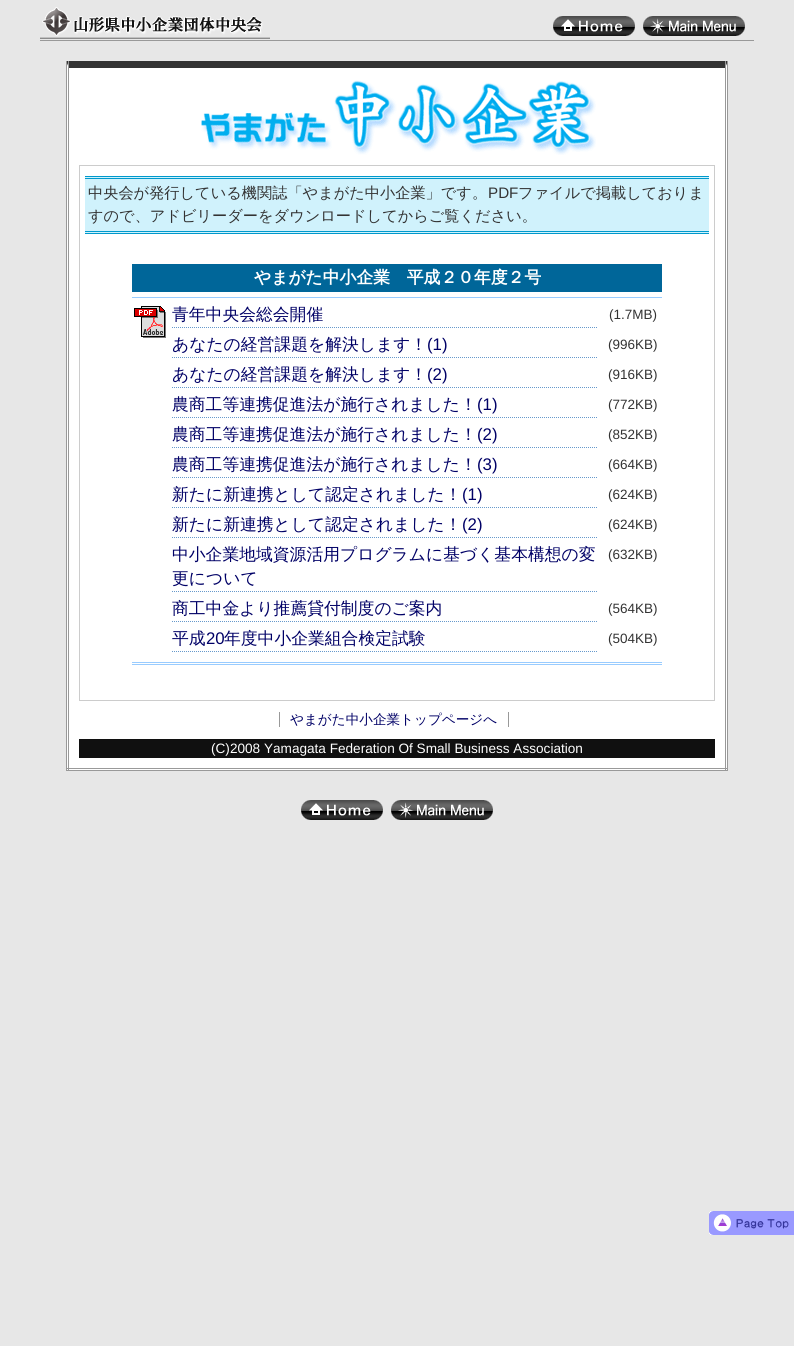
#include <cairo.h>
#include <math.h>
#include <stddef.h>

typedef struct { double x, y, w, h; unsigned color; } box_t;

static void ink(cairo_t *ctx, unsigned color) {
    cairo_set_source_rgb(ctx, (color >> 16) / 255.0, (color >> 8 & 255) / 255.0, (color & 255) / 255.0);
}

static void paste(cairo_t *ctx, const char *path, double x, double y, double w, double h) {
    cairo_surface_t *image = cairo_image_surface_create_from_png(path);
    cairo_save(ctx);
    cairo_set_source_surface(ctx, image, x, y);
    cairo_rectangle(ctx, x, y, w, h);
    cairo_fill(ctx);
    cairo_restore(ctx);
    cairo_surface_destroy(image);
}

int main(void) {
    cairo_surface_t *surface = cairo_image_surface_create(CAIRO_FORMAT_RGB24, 794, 1346);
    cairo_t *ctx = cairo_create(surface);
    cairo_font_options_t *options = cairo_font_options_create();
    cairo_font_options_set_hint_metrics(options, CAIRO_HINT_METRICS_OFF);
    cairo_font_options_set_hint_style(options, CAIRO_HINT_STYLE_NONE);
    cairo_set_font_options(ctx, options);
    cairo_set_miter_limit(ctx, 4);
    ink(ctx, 0xE7E7E7);
    cairo_paint(ctx);
    ink(ctx, 0x999999);
    cairo_rectangle(ctx, 40, 40, 714, 1);
    cairo_fill(ctx);
    paste(ctx, "media/1.png", 40, 7, 230, 32);
    paste(ctx, "media/2.png", 553, 16, 82, 20);
    paste(ctx, "media/3.png", 643, 16, 102, 20);
    ink(ctx, 0xFFFFFF);
    cairo_rectangle(ctx, 67, 63, 660, 707);
    cairo_fill(ctx);
    ink(ctx, 0x333333);
    cairo_new_path(ctx);
    cairo_move_to(ctx, 66, 61);
    cairo_line_to(ctx, 728, 61);
    cairo_line_to(ctx, 725, 68);
    cairo_line_to(ctx, 69, 68);
    cairo_close_path(ctx);
    cairo_fill(ctx);
    {
        static const box_t items[] = {
            {725, 61, 1, 710, 0x999999},
            {727, 61, 1, 710, 0x999999},
            {66, 768, 662, 1, 0x999999},
            {66, 770, 662, 1, 0x999999},
            {66, 61, 1, 710, 0x999999},
            {68, 61, 1, 710, 0x999999},
        };
        for (size_t i = 0; i < sizeof items / sizeof *items; i++) {
            ink(ctx, items[i].color);
            cairo_rectangle(ctx, items[i].x, items[i].y, items[i].w, items[i].h);
            cairo_fill(ctx);
        }
    }
    paste(ctx, "media/4.png", 201, 80, 395, 75);
    cairo_rectangle(ctx, 79.5, 165.5, 635, 535);
    ink(ctx, 0xCCCCCC);
    cairo_set_line_width(ctx, 1);
    cairo_stroke(ctx);
    {
        static const box_t items[] = {
            {85, 177, 624, 56, 0xD0F2FC},
            {85, 176, 624, 1, 0x0099CC},
            {85, 178, 624, 1, 0x0099CC},
            {85, 231, 624, 1, 0x0099CC},
            {85, 233, 624, 1, 0x0099CC},
        };
        for (size_t i = 0; i < sizeof items / sizeof *items; i++) {
            ink(ctx, items[i].color);
            cairo_rectangle(ctx, items[i].x, items[i].y, items[i].w, items[i].h);
            cairo_fill(ctx);
        }
    }
    cairo_select_font_face(ctx, "WenQuanYi Zen Hei Medium", CAIRO_FONT_SLANT_NORMAL, CAIRO_FONT_WEIGHT_NORMAL);
    cairo_set_font_size(ctx, 15.2);
    ink(ctx, 0x333333);
    cairo_move_to(ctx, 88, 198);
    cairo_show_text(ctx, "中央会が発行している機関誌「やまがた中小企業」です。");
    cairo_select_font_face(ctx, "Liberation Sans", CAIRO_FONT_SLANT_NORMAL, CAIRO_FONT_WEIGHT_NORMAL);
    cairo_move_to(ctx, 488, 198);
    cairo_show_text(ctx, "PDF");
    cairo_select_font_face(ctx, "WenQuanYi Zen Hei Medium", CAIRO_FONT_SLANT_NORMAL, CAIRO_FONT_WEIGHT_NORMAL);
    cairo_move_to(ctx, 518, 198);
    cairo_show_text(ctx, "ファイルで掲載しておりま");
    cairo_move_to(ctx, 88, 221);
    cairo_show_text(ctx, "すので、アドビリーダーをダウンロードしてからご覧ください。");
    ink(ctx, 0x006699);
    cairo_rectangle(ctx, 132, 264, 530, 28);
    cairo_fill(ctx);
    cairo_select_font_face(ctx, "WenQuanYi Zen Hei", CAIRO_FONT_SLANT_NORMAL, CAIRO_FONT_WEIGHT_BOLD);
    cairo_set_font_size(ctx, 16.8);
    ink(ctx, 0xFFFFFF);
    cairo_move_to(ctx, 254, 283);
    cairo_show_text(ctx, "やまがた中小企業　平成２０年度２号");
    {
        static const box_t items[] = {
            {132, 297, 530, 1, 0x99CCFF},
            {132, 662, 530, 1, 0x99CCFF},
            {132, 664, 530, 1, 0x99CCFF},
        };
        for (size_t i = 0; i < sizeof items / sizeof *items; i++) {
            ink(ctx, items[i].color);
            cairo_rectangle(ctx, items[i].x, items[i].y, items[i].w, items[i].h);
            cairo_fill(ctx);
        }
    }
    paste(ctx, "media/5.png", 134, 306, 32, 32);
    cairo_new_path(ctx);
    cairo_move_to(ctx, 172, 327.5);
    cairo_line_to(ctx, 597, 327.5);
    ink(ctx, 0x6699CC);
    cairo_set_dash(ctx, (double[]){1, 1}, 2, 0);
    cairo_stroke(ctx);
    cairo_select_font_face(ctx, "WenQuanYi Zen Hei Medium", CAIRO_FONT_SLANT_NORMAL, CAIRO_FONT_WEIGHT_NORMAL);
    ink(ctx, 0x000066);
    cairo_move_to(ctx, 172, 320);
    cairo_show_text(ctx, "青年中央会総会開催");
    cairo_select_font_face(ctx, "Liberation Sans", CAIRO_FONT_SLANT_NORMAL, CAIRO_FONT_WEIGHT_NORMAL);
    cairo_set_font_size(ctx, 13.5);
    ink(ctx, 0x333333);
    cairo_move_to(ctx, 609, 319);
    cairo_show_text(ctx, "(1.7MB)");
    cairo_new_path(ctx);
    cairo_move_to(ctx, 172, 357.5);
    cairo_line_to(ctx, 597, 357.5);
    ink(ctx, 0x6699CC);
    cairo_stroke(ctx);
    cairo_select_font_face(ctx, "WenQuanYi Zen Hei Medium", CAIRO_FONT_SLANT_NORMAL, CAIRO_FONT_WEIGHT_NORMAL);
    cairo_set_font_size(ctx, 16.8);
    ink(ctx, 0x000066);
    cairo_move_to(ctx, 172, 350);
    cairo_show_text(ctx, "あなたの経営課題を解決します！");
    cairo_select_font_face(ctx, "Liberation Sans", CAIRO_FONT_SLANT_NORMAL, CAIRO_FONT_WEIGHT_NORMAL);
    cairo_move_to(ctx, 427, 350);
    cairo_show_text(ctx, "(1)");
    cairo_set_font_size(ctx, 13.5);
    ink(ctx, 0x333333);
    cairo_move_to(ctx, 608, 349);
    cairo_show_text(ctx, "(996KB)");
    cairo_new_path(ctx);
    cairo_move_to(ctx, 172, 387.5);
    cairo_line_to(ctx, 597, 387.5);
    ink(ctx, 0x6699CC);
    cairo_stroke(ctx);
    cairo_select_font_face(ctx, "WenQuanYi Zen Hei Medium", CAIRO_FONT_SLANT_NORMAL, CAIRO_FONT_WEIGHT_NORMAL);
    cairo_set_font_size(ctx, 16.8);
    ink(ctx, 0x000066);
    cairo_move_to(ctx, 172, 380);
    cairo_show_text(ctx, "あなたの経営課題を解決します！");
    cairo_select_font_face(ctx, "Liberation Sans", CAIRO_FONT_SLANT_NORMAL, CAIRO_FONT_WEIGHT_NORMAL);
    cairo_move_to(ctx, 427, 380);
    cairo_show_text(ctx, "(2)");
    cairo_set_font_size(ctx, 13.5);
    ink(ctx, 0x333333);
    cairo_move_to(ctx, 608, 379);
    cairo_show_text(ctx, "(916KB)");
    cairo_new_path(ctx);
    cairo_move_to(ctx, 172, 417.5);
    cairo_line_to(ctx, 597, 417.5);
    ink(ctx, 0x6699CC);
    cairo_stroke(ctx);
    cairo_select_font_face(ctx, "WenQuanYi Zen Hei Medium", CAIRO_FONT_SLANT_NORMAL, CAIRO_FONT_WEIGHT_NORMAL);
    cairo_set_font_size(ctx, 16.8);
    ink(ctx, 0x000066);
    cairo_move_to(ctx, 172, 410);
    cairo_show_text(ctx, "農商工等連携促進法が施行されました！");
    cairo_select_font_face(ctx, "Liberation Sans", CAIRO_FONT_SLANT_NORMAL, CAIRO_FONT_WEIGHT_NORMAL);
    cairo_move_to(ctx, 477, 410);
    cairo_show_text(ctx, "(1)");
    cairo_set_font_size(ctx, 13.5);
    ink(ctx, 0x333333);
    cairo_move_to(ctx, 608, 409);
    cairo_show_text(ctx, "(772KB)");
    cairo_new_path(ctx);
    cairo_move_to(ctx, 172, 447.5);
    cairo_line_to(ctx, 597, 447.5);
    ink(ctx, 0x6699CC);
    cairo_stroke(ctx);
    cairo_select_font_face(ctx, "WenQuanYi Zen Hei Medium", CAIRO_FONT_SLANT_NORMAL, CAIRO_FONT_WEIGHT_NORMAL);
    cairo_set_font_size(ctx, 16.8);
    ink(ctx, 0x000066);
    cairo_move_to(ctx, 172, 440);
    cairo_show_text(ctx, "農商工等連携促進法が施行されました！");
    cairo_select_font_face(ctx, "Liberation Sans", CAIRO_FONT_SLANT_NORMAL, CAIRO_FONT_WEIGHT_NORMAL);
    cairo_move_to(ctx, 477, 440);
    cairo_show_text(ctx, "(2)");
    cairo_set_font_size(ctx, 13.5);
    ink(ctx, 0x333333);
    cairo_move_to(ctx, 608, 439);
    cairo_show_text(ctx, "(852KB)");
    cairo_new_path(ctx);
    cairo_move_to(ctx, 172, 477.5);
    cairo_line_to(ctx, 597, 477.5);
    ink(ctx, 0x6699CC);
    cairo_stroke(ctx);
    cairo_select_font_face(ctx, "WenQuanYi Zen Hei Medium", CAIRO_FONT_SLANT_NORMAL, CAIRO_FONT_WEIGHT_NORMAL);
    cairo_set_font_size(ctx, 16.8);
    ink(ctx, 0x000066);
    cairo_move_to(ctx, 172, 470);
    cairo_show_text(ctx, "農商工等連携促進法が施行されました！");
    cairo_select_font_face(ctx, "Liberation Sans", CAIRO_FONT_SLANT_NORMAL, CAIRO_FONT_WEIGHT_NORMAL);
    cairo_move_to(ctx, 477, 470);
    cairo_show_text(ctx, "(3)");
    cairo_set_font_size(ctx, 13.5);
    ink(ctx, 0x333333);
    cairo_move_to(ctx, 608, 469);
    cairo_show_text(ctx, "(664KB)");
    cairo_new_path(ctx);
    cairo_move_to(ctx, 172, 507.5);
    cairo_line_to(ctx, 597, 507.5);
    ink(ctx, 0x6699CC);
    cairo_stroke(ctx);
    cairo_select_font_face(ctx, "WenQuanYi Zen Hei Medium", CAIRO_FONT_SLANT_NORMAL, CAIRO_FONT_WEIGHT_NORMAL);
    cairo_set_font_size(ctx, 16.8);
    ink(ctx, 0x000066);
    cairo_move_to(ctx, 172, 500);
    cairo_show_text(ctx, "新たに新連携として認定されました！");
    cairo_select_font_face(ctx, "Liberation Sans", CAIRO_FONT_SLANT_NORMAL, CAIRO_FONT_WEIGHT_NORMAL);
    cairo_move_to(ctx, 462, 500);
    cairo_show_text(ctx, "(1)");
    cairo_set_font_size(ctx, 13.5);
    ink(ctx, 0x333333);
    cairo_move_to(ctx, 608, 499);
    cairo_show_text(ctx, "(624KB)");
    cairo_new_path(ctx);
    cairo_move_to(ctx, 172, 537.5);
    cairo_line_to(ctx, 597, 537.5);
    ink(ctx, 0x6699CC);
    cairo_stroke(ctx);
    cairo_select_font_face(ctx, "WenQuanYi Zen Hei Medium", CAIRO_FONT_SLANT_NORMAL, CAIRO_FONT_WEIGHT_NORMAL);
    cairo_set_font_size(ctx, 16.8);
    ink(ctx, 0x000066);
    cairo_move_to(ctx, 172, 530);
    cairo_show_text(ctx, "新たに新連携として認定されました！");
    cairo_select_font_face(ctx, "Liberation Sans", CAIRO_FONT_SLANT_NORMAL, CAIRO_FONT_WEIGHT_NORMAL);
    cairo_move_to(ctx, 462, 530);
    cairo_show_text(ctx, "(2)");
    cairo_set_font_size(ctx, 13.5);
    ink(ctx, 0x333333);
    cairo_move_to(ctx, 608, 529);
    cairo_show_text(ctx, "(624KB)");
    cairo_new_path(ctx);
    cairo_move_to(ctx, 172, 591.5);
    cairo_line_to(ctx, 597, 591.5);
    ink(ctx, 0x6699CC);
    cairo_stroke(ctx);
    cairo_select_font_face(ctx, "WenQuanYi Zen Hei Medium", CAIRO_FONT_SLANT_NORMAL, CAIRO_FONT_WEIGHT_NORMAL);
    cairo_set_font_size(ctx, 16.8);
    ink(ctx, 0x000066);
    cairo_move_to(ctx, 172, 560);
    cairo_show_text(ctx, "中小企業地域資源活用プログラムに基づく基本構想の変");
    cairo_move_to(ctx, 172, 584);
    cairo_show_text(ctx, "更について");
    cairo_select_font_face(ctx, "Liberation Sans", CAIRO_FONT_SLANT_NORMAL, CAIRO_FONT_WEIGHT_NORMAL);
    cairo_set_font_size(ctx, 13.5);
    ink(ctx, 0x333333);
    cairo_move_to(ctx, 608, 559);
    cairo_show_text(ctx, "(632KB)");
    cairo_new_path(ctx);
    cairo_move_to(ctx, 172, 621.5);
    cairo_line_to(ctx, 597, 621.5);
    ink(ctx, 0x6699CC);
    cairo_stroke(ctx);
    cairo_select_font_face(ctx, "WenQuanYi Zen Hei Medium", CAIRO_FONT_SLANT_NORMAL, CAIRO_FONT_WEIGHT_NORMAL);
    cairo_set_font_size(ctx, 16.8);
    ink(ctx, 0x000066);
    cairo_move_to(ctx, 172, 614);
    cairo_show_text(ctx, "商工中金より推薦貸付制度のご案内");
    cairo_select_font_face(ctx, "Liberation Sans", CAIRO_FONT_SLANT_NORMAL, CAIRO_FONT_WEIGHT_NORMAL);
    cairo_set_font_size(ctx, 13.5);
    ink(ctx, 0x333333);
    cairo_move_to(ctx, 608, 613);
    cairo_show_text(ctx, "(564KB)");
    cairo_new_path(ctx);
    cairo_move_to(ctx, 172, 651.5);
    cairo_line_to(ctx, 597, 651.5);
    ink(ctx, 0x6699CC);
    cairo_stroke(ctx);
    cairo_select_font_face(ctx, "WenQuanYi Zen Hei Medium", CAIRO_FONT_SLANT_NORMAL, CAIRO_FONT_WEIGHT_NORMAL);
    cairo_set_font_size(ctx, 16.8);
    ink(ctx, 0x000066);
    cairo_move_to(ctx, 172, 644);
    cairo_show_text(ctx, "平成");
    cairo_select_font_face(ctx, "Liberation Sans", CAIRO_FONT_SLANT_NORMAL, CAIRO_FONT_WEIGHT_NORMAL);
    cairo_move_to(ctx, 206, 644);
    cairo_show_text(ctx, "20");
    cairo_select_font_face(ctx, "WenQuanYi Zen Hei Medium", CAIRO_FONT_SLANT_NORMAL, CAIRO_FONT_WEIGHT_NORMAL);
    cairo_move_to(ctx, 224, 644);
    cairo_show_text(ctx, "年度中小企業組合検定試験");
    cairo_select_font_face(ctx, "Liberation Sans", CAIRO_FONT_SLANT_NORMAL, CAIRO_FONT_WEIGHT_NORMAL);
    cairo_set_font_size(ctx, 13.5);
    ink(ctx, 0x333333);
    cairo_move_to(ctx, 608, 643);
    cairo_show_text(ctx, "(504KB)");
    cairo_select_font_face(ctx, "WenQuanYi Zen Hei Medium", CAIRO_FONT_SLANT_NORMAL, CAIRO_FONT_WEIGHT_NORMAL);
    cairo_set_font_size(ctx, 13.6);
    ink(ctx, 0x000066);
    cairo_move_to(ctx, 290, 724);
    cairo_show_text(ctx, "やまがた中小企業トップページへ");
    {
        static const box_t items[] = {
            {508, 712, 1, 15, 0x999999},
            {279, 712, 1, 15, 0x999999},
            {79, 739, 636, 19, 0x101010},
        };
        for (size_t i = 0; i < sizeof items / sizeof *items; i++) {
            ink(ctx, items[i].color);
            cairo_rectangle(ctx, items[i].x, items[i].y, items[i].w, items[i].h);
            cairo_fill(ctx);
        }
    }
    cairo_select_font_face(ctx, "Liberation Sans", CAIRO_FONT_SLANT_NORMAL, CAIRO_FONT_WEIGHT_NORMAL);
    ink(ctx, 0xFFFFFF);
    cairo_move_to(ctx, 211, 753);
    cairo_show_text(ctx, "(C)2008 Yamagata Federation Of Small Business Association");
    paste(ctx, "media/2.png", 301, 800, 82, 20);
    paste(ctx, "media/3.png", 391, 800, 102, 20);
    paste(ctx, "media/6.png", 709, 1211, 85, 24);
    cairo_surface_write_to_png(surface, "image.png");
    cairo_font_options_destroy(options);
    cairo_destroy(ctx);
    cairo_surface_destroy(surface);
    return 0;
}
